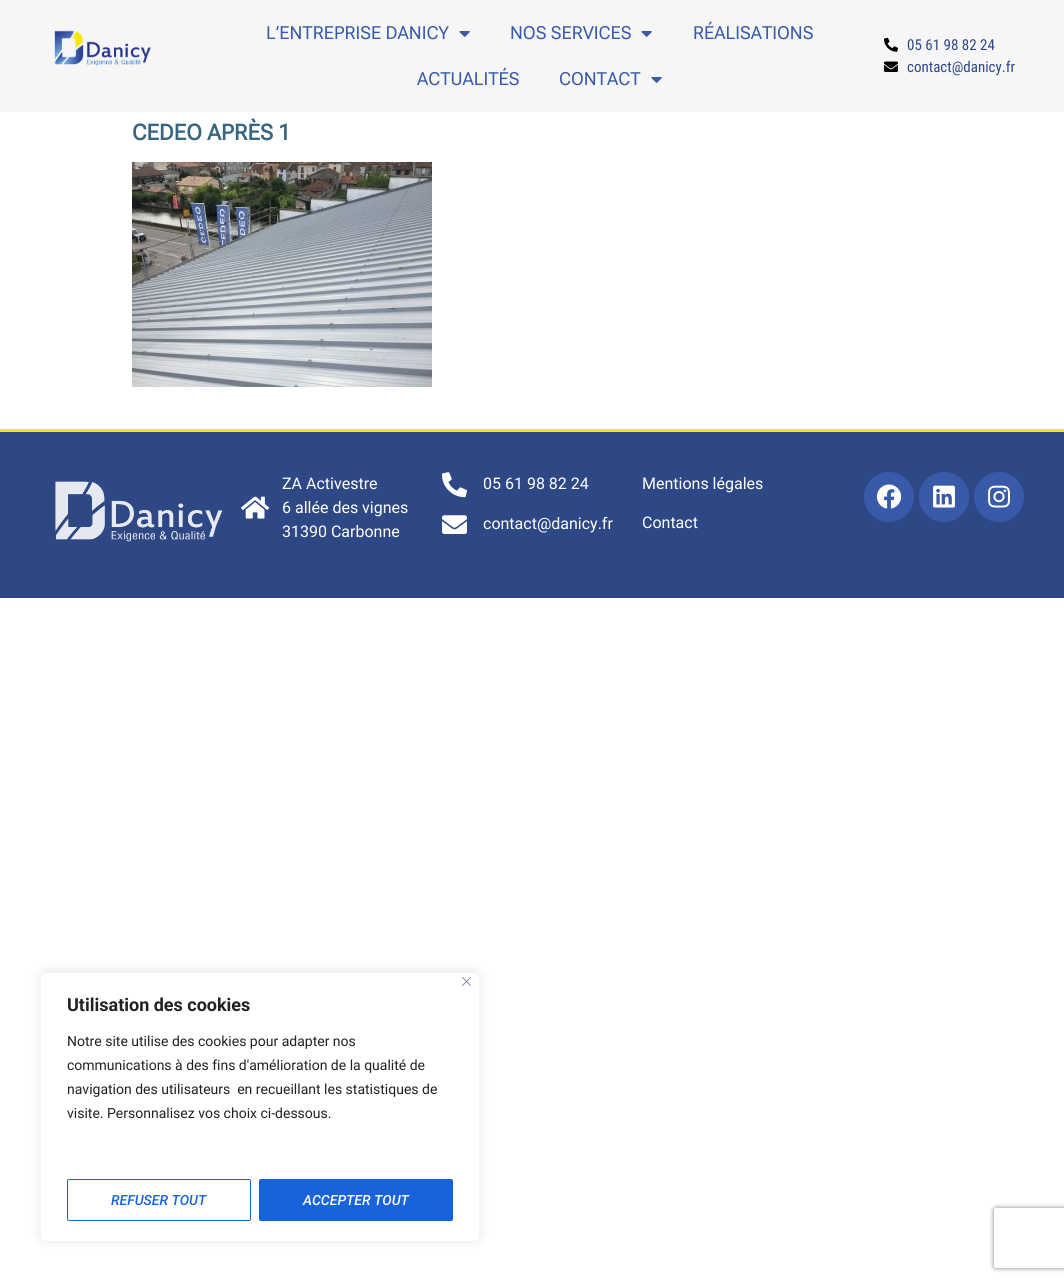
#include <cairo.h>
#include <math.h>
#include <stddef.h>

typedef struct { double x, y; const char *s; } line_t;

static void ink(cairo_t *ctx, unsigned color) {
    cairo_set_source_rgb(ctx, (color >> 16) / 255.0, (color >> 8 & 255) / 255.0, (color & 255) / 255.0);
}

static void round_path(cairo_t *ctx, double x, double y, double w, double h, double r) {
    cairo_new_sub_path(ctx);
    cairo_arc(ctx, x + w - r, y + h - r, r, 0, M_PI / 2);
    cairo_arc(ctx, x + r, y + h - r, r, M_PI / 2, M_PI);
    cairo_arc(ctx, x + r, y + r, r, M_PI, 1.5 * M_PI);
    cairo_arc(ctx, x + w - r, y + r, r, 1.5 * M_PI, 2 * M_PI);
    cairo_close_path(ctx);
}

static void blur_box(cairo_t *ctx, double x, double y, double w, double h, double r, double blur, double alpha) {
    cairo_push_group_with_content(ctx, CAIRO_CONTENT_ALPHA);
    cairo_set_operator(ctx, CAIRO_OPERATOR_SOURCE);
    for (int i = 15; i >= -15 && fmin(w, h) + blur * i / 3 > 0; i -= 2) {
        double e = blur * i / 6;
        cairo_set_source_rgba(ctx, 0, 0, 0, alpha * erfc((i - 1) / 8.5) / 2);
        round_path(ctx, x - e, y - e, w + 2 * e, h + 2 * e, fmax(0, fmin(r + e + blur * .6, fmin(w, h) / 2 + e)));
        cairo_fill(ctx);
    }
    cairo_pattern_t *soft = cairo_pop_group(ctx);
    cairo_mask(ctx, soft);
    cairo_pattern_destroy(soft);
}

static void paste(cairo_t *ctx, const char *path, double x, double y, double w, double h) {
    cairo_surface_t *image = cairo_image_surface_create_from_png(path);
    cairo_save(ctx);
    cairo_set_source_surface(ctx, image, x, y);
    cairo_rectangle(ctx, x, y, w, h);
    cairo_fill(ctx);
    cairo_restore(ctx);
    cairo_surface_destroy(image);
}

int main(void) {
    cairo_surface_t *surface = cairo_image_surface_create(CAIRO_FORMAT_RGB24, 1064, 1282);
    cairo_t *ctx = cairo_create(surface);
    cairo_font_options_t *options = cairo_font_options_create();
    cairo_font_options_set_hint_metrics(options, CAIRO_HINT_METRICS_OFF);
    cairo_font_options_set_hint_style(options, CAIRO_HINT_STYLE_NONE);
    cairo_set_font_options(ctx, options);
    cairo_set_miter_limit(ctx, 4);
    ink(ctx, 0xFFFFFF);
    cairo_paint(ctx);
    ink(ctx, 0xF6F6F6);
    cairo_rectangle(ctx, 0, 0, 1064, 112);
    cairo_fill(ctx);
    paste(ctx, "media/1.png", 54, 30, 97, 36);
    cairo_select_font_face(ctx, "Roboto Flex", CAIRO_FONT_SLANT_NORMAL, CAIRO_FONT_WEIGHT_NORMAL);
    cairo_set_font_size(ctx, 18);
    ink(ctx, 0x395AA8);
    cairo_move_to(ctx, 266, 39);
    cairo_show_text(ctx, "L’ENTREPRISE DANICY");
    paste(ctx, "media/2.png", 459, 31, 11, 6);
    cairo_move_to(ctx, 510, 39);
    cairo_show_text(ctx, "NOS SERVICES");
    paste(ctx, "media/2.png", 641, 31, 11, 6);
    {
        static const line_t items[] = {
            {693, 39, "RÉALISATIONS"},
            {417, 85, "ACTUALITÉS"},
            {559, 85, "CONTACT"},
        };
        for (size_t i = 0; i < sizeof items / sizeof *items; i++) {
            cairo_move_to(ctx, items[i].x, items[i].y);
            cairo_show_text(ctx, items[i].s);
        }
    }
    paste(ctx, "media/2.png", 651, 77, 11, 6);
    paste(ctx, "media/3.png", 884, 37, 14, 15);
    cairo_select_font_face(ctx, "Roboto Condensed", CAIRO_FONT_SLANT_NORMAL, CAIRO_FONT_WEIGHT_NORMAL);
    cairo_set_font_size(ctx, 15);
    ink(ctx, 0x2E4886);
    cairo_move_to(ctx, 907, 50);
    cairo_show_text(ctx, "05 61 98 82 24");
    paste(ctx, "media/4.png", 884, 61, 14, 11);
    cairo_move_to(ctx, 907, 72);
    cairo_show_text(ctx, "contact@danicy.fr");
    cairo_select_font_face(ctx, "Roboto Flex", CAIRO_FONT_SLANT_NORMAL, CAIRO_FONT_WEIGHT_BOLD);
    cairo_set_font_size(ctx, 22);
    ink(ctx, 0x386580);
    cairo_move_to(ctx, 132, 140);
    cairo_show_text(ctx, "CEDEO APRÈS 1");
    paste(ctx, "media/5.png", 132, 162, 300, 225);
    ink(ctx, 0x2E4886);
    cairo_rectangle(ctx, 0, 432, 1064, 166);
    cairo_fill(ctx);
    ink(ctx, 0xF5E80B);
    cairo_rectangle(ctx, 0, 429, 1064, 3);
    cairo_fill(ctx);
    paste(ctx, "media/6.png", 55, 481, 168, 61);
    paste(ctx, "media/7.png", 241, 496, 29, 23);
    cairo_select_font_face(ctx, "Roboto", CAIRO_FONT_SLANT_NORMAL, CAIRO_FONT_WEIGHT_NORMAL);
    cairo_set_font_size(ctx, 16);
    ink(ctx, 0xFFFFFF);
    {
        static const line_t items[] = {
            {282, 489, "ZA Activestre"},
            {282, 513, "6 allée des vignes"},
            {282, 537, "31390 Carbonne"},
        };
        for (size_t i = 0; i < sizeof items / sizeof *items; i++) {
            cairo_move_to(ctx, items[i].x, items[i].y);
            cairo_show_text(ctx, items[i].s);
        }
    }
    paste(ctx, "media/8.png", 442, 472, 25, 26);
    cairo_move_to(ctx, 483, 489);
    cairo_show_text(ctx, "05 61 98 82 24");
    paste(ctx, "media/9.png", 442, 515, 25, 19);
    {
        static const line_t items[] = {
            {483, 529, "contact@danicy.fr"},
            {642, 489, "Mentions légales"},
            {642, 528, "Contact"},
        };
        for (size_t i = 0; i < sizeof items / sizeof *items; i++) {
            cairo_move_to(ctx, items[i].x, items[i].y);
            cairo_show_text(ctx, items[i].s);
        }
    }
    ink(ctx, 0x395AA8);
    cairo_new_path(ctx);
    cairo_arc(ctx, 889, 497, 25, 0, 2 * M_PI);
    cairo_fill(ctx);
    paste(ctx, "media/10.png", 876, 484, 26, 25);
    cairo_arc(ctx, 944, 497, 25, 0, 2 * M_PI);
    cairo_fill(ctx);
    paste(ctx, "media/11.png", 933, 485, 22, 23);
    cairo_arc(ctx, 999, 497, 25, 0, 2 * M_PI);
    cairo_fill(ctx);
    paste(ctx, "media/12.png", 988, 485, 22, 23);
    ink(ctx, 0xACABAB);
    blur_box(ctx, 40, 971, 440, 270, 6, 5, 0.3);
    ink(ctx, 0xFFFFFF);
    round_path(ctx, 40.5, 972.5, 439, 269, 5.5);
    cairo_fill_preserve(ctx);
    ink(ctx, 0xF4F4F4);
    cairo_set_line_width(ctx, 1);
    cairo_stroke(ctx);
    paste(ctx, "media/13.png", 462, 977, 9, 9);
    cairo_select_font_face(ctx, "Roboto", CAIRO_FONT_SLANT_NORMAL, CAIRO_FONT_WEIGHT_BOLD);
    cairo_set_font_size(ctx, 18);
    ink(ctx, 0x212121);
    cairo_move_to(ctx, 67, 1011);
    cairo_show_text(ctx, "Utilisation des cookies");
    cairo_select_font_face(ctx, "Roboto", CAIRO_FONT_SLANT_NORMAL, CAIRO_FONT_WEIGHT_NORMAL);
    cairo_set_font_size(ctx, 14);
    {
        static const line_t items[] = {
            {67, 1046, "Notre site utilise des cookies pour adapter nos"},
            {67, 1070, "communications à des fins d'amélioration de la qualité de"},
            {67, 1094, "navigation des utilisateurs  en recueillant les statistiques de"},
            {67, 1118, "visite. Personnalisez vos choix ci-dessous."},
        };
        for (size_t i = 0; i < sizeof items / sizeof *items; i++) {
            cairo_move_to(ctx, items[i].x, items[i].y);
            cairo_show_text(ctx, items[i].s);
        }
    }
    round_path(ctx, 67.5, 1179.5, 183, 41, 1.5);
    ink(ctx, 0x1863DC);
    cairo_stroke(ctx);
    cairo_select_font_face(ctx, "Roboto Medium", CAIRO_FONT_SLANT_ITALIC, CAIRO_FONT_WEIGHT_NORMAL);
    cairo_move_to(ctx, 111, 1205);
    cairo_show_text(ctx, "REFUSER TOUT");
    round_path(ctx, 259.5, 1179.5, 193, 41, 1.5);
    cairo_fill_preserve(ctx);
    cairo_stroke(ctx);
    ink(ctx, 0xFFFFFF);
    cairo_move_to(ctx, 303, 1205);
    cairo_show_text(ctx, "ACCEPTER TOUT");
    cairo_save(ctx);
    cairo_set_fill_rule(ctx, CAIRO_FILL_RULE_EVEN_ODD);
    cairo_new_path(ctx);
    cairo_move_to(ctx, 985, 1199);
    cairo_line_to(ctx, 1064, 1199);
    cairo_line_to(ctx, 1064, 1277);
    cairo_line_to(ctx, 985, 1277);
    cairo_close_path(ctx);
    cairo_move_to(ctx, 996, 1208);
    cairo_line_to(ctx, 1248, 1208);
    cairo_curve_to(ctx, 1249, 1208, 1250, 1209, 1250, 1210);
    cairo_line_to(ctx, 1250, 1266);
    cairo_curve_to(ctx, 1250, 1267, 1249, 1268, 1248, 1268);
    cairo_line_to(ctx, 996, 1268);
    cairo_curve_to(ctx, 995, 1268, 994, 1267, 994, 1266);
    cairo_line_to(ctx, 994, 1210);
    cairo_curve_to(ctx, 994, 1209, 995, 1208, 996, 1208);
    cairo_close_path(ctx);
    cairo_clip(ctx);
    ink(ctx, 0x808080);
    blur_box(ctx, 994, 1208, 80, 60, 2, 2.5, 1);
    cairo_restore(ctx);
    cairo_surface_write_to_png(surface, "image.png");
    cairo_font_options_destroy(options);
    cairo_destroy(ctx);
    cairo_surface_destroy(surface);
    return 0;
}
